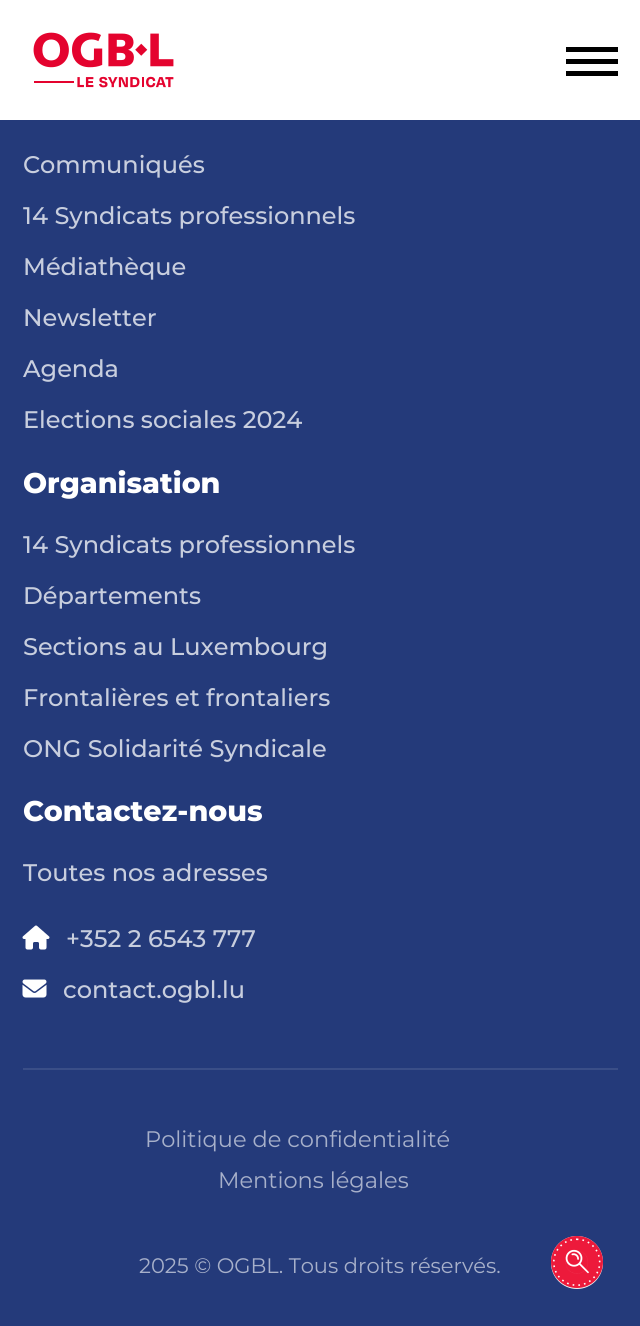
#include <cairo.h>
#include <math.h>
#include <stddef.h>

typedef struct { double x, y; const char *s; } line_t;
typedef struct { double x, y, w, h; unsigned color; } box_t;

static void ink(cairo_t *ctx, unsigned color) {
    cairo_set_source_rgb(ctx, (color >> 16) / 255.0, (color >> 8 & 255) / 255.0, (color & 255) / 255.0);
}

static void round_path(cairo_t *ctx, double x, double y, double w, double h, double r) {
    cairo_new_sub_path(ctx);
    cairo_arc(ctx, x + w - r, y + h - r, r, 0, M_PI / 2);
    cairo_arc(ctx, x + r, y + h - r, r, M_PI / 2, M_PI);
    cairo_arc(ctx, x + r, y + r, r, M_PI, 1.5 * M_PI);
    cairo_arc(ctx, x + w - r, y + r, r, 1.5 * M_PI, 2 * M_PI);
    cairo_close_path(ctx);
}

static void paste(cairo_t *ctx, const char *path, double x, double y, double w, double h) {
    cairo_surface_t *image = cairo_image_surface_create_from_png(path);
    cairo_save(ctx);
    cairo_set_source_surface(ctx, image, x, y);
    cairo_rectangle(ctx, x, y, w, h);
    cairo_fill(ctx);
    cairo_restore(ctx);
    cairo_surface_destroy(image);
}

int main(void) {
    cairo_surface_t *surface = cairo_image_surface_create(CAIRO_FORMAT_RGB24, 640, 1326);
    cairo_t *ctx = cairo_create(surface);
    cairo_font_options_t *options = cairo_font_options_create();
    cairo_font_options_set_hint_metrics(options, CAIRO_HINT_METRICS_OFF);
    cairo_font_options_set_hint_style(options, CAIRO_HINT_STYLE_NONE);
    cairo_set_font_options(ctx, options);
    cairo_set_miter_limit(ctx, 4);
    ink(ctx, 0x243A7A);
    cairo_paint(ctx);
    ink(ctx, 0xFFFFFF);
    cairo_rectangle(ctx, 0, 0, 640, 120);
    cairo_fill(ctx);
    paste(ctx, "media/1.png", 33, 32, 141, 56);
    {
        static const box_t items[] = {
            {566, 47, 52, 5, 0x000000},
            {566, 59, 52, 5, 0x000000},
            {566, 71, 52, 5, 0x000000},
        };
        for (size_t i = 0; i < sizeof items / sizeof *items; i++) {
            ink(ctx, items[i].color);
            cairo_rectangle(ctx, items[i].x, items[i].y, items[i].w, items[i].h);
            cairo_fill(ctx);
        }
    }
    cairo_select_font_face(ctx, "Montserrat Medium", CAIRO_FONT_SLANT_NORMAL, CAIRO_FONT_WEIGHT_NORMAL);
    cairo_set_font_size(ctx, 24);
    ink(ctx, 0xC8CEDE);
    {
        static const line_t items[] = {
            {23, 173, "Communiqués"},
            {23, 224, "14 Syndicats professionnels"},
            {23, 275, "Médiathèque"},
            {23, 326, "Newsletter"},
            {23, 377, "Agenda"},
            {23, 428, "Elections sociales 2024"},
        };
        for (size_t i = 0; i < sizeof items / sizeof *items; i++) {
            cairo_move_to(ctx, items[i].x, items[i].y);
            cairo_show_text(ctx, items[i].s);
        }
    }
    cairo_select_font_face(ctx, "Montserrat ExtraBold", CAIRO_FONT_SLANT_NORMAL, CAIRO_FONT_WEIGHT_NORMAL);
    cairo_set_font_size(ctx, 28.5);
    ink(ctx, 0xFFFFFF);
    cairo_move_to(ctx, 23, 493);
    cairo_show_text(ctx, "Organisation");
    cairo_select_font_face(ctx, "Montserrat Medium", CAIRO_FONT_SLANT_NORMAL, CAIRO_FONT_WEIGHT_NORMAL);
    cairo_set_font_size(ctx, 24);
    ink(ctx, 0xC8CEDE);
    {
        static const line_t items[] = {
            {23, 553, "14 Syndicats professionnels"},
            {23, 604, "Départements"},
            {23, 655, "Sections au Luxembourg"},
            {23, 706, "Frontalières et frontaliers"},
            {23, 757, "ONG Solidarité Syndicale"},
        };
        for (size_t i = 0; i < sizeof items / sizeof *items; i++) {
            cairo_move_to(ctx, items[i].x, items[i].y);
            cairo_show_text(ctx, items[i].s);
        }
    }
    cairo_select_font_face(ctx, "Montserrat ExtraBold", CAIRO_FONT_SLANT_NORMAL, CAIRO_FONT_WEIGHT_NORMAL);
    cairo_set_font_size(ctx, 28.5);
    ink(ctx, 0xFFFFFF);
    cairo_move_to(ctx, 23, 821);
    cairo_show_text(ctx, "Contactez-nous");
    cairo_select_font_face(ctx, "Montserrat Medium", CAIRO_FONT_SLANT_NORMAL, CAIRO_FONT_WEIGHT_NORMAL);
    cairo_set_font_size(ctx, 24);
    ink(ctx, 0xC8CEDE);
    cairo_move_to(ctx, 23, 881);
    cairo_show_text(ctx, "Toutes nos adresses");
    paste(ctx, "media/2.png", 22, 925, 28, 25);
    cairo_move_to(ctx, 66, 947);
    cairo_show_text(ctx, "+352 2 6543 777");
    paste(ctx, "media/3.png", 22, 979, 25, 19);
    cairo_move_to(ctx, 63, 998);
    cairo_show_text(ctx, "contact.ogbl.lu");
    ink(ctx, 0x3A4E87);
    cairo_rectangle(ctx, 23, 1068, 595, 2);
    cairo_fill(ctx);
    cairo_select_font_face(ctx, "Montserrat", CAIRO_FONT_SLANT_NORMAL, CAIRO_FONT_WEIGHT_NORMAL);
    cairo_set_font_size(ctx, 22.5);
    ink(ctx, 0xA7B0CA);
    cairo_move_to(ctx, 145, 1147);
    cairo_show_text(ctx, "Politique de confidentialité");
    cairo_move_to(ctx, 218, 1188);
    cairo_show_text(ctx, "Mentions légales");
    cairo_set_font_size(ctx, 21);
    cairo_move_to(ctx, 139, 1273);
    cairo_show_text(ctx, "2025 © OGBL. Tous droits réservés.");
    ink(ctx, 0xEFEFEF);
    round_path(ctx, 551, 1236, 52, 53, 26);
    cairo_fill(ctx);
    paste(ctx, "media/4.png", 551, 1236, 52, 52);
    cairo_new_path(ctx);
    cairo_move_to(ctx, 577, 1251);
    cairo_curve_to(ctx, 591.5, 1251, 591.5, 1273.5, 577, 1273.5);
    cairo_curve_to(ctx, 562, 1273.5, 562, 1251, 577, 1251);
    cairo_close_path(ctx);
    ink(ctx, 0xFFFFFF);
    cairo_set_line_width(ctx, 0.1);
    cairo_set_dash(ctx, (double[]){0.13, 0.33}, 2, 0);
    cairo_stroke(ctx);
    cairo_surface_write_to_png(surface, "image.png");
    cairo_font_options_destroy(options);
    cairo_destroy(ctx);
    cairo_surface_destroy(surface);
    return 0;
}
